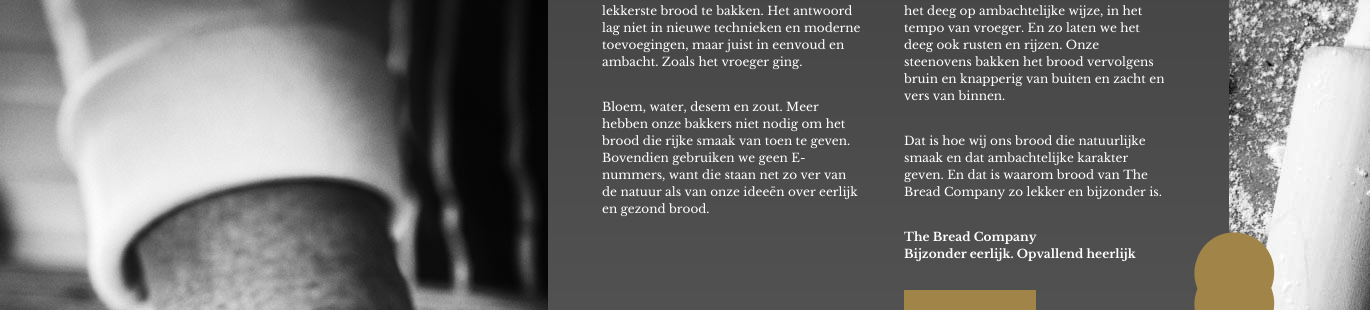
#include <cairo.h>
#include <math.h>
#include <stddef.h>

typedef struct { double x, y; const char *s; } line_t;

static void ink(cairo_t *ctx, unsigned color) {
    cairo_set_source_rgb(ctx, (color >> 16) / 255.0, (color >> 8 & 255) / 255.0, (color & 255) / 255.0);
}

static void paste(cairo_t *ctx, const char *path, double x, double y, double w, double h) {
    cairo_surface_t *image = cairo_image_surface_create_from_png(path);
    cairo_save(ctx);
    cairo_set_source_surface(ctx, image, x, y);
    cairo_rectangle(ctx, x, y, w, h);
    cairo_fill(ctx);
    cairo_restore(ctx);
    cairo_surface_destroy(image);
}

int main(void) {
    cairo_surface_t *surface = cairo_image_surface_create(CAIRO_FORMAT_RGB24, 1370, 310);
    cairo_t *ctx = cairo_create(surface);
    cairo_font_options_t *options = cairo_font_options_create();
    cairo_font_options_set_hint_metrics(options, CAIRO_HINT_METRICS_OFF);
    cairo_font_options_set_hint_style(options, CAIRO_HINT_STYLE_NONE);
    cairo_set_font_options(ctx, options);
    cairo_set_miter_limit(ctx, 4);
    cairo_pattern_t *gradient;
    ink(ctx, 0xFFFFFF);
    cairo_paint(ctx);
    paste(ctx, "media/1.png", 0, 0, 1370, 310);
    gradient = cairo_pattern_create_linear(889, -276, 889, 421);
    cairo_pattern_add_color_stop_rgba(gradient, 0, 0.239, 0.239, 0.239, 1);
    cairo_pattern_add_color_stop_rgba(gradient, 1, 0.333, 0.333, 0.333, 1);
    cairo_set_source(ctx, gradient);
    cairo_pattern_destroy(gradient);
    cairo_rectangle(ctx, 548, 0, 681, 310);
    cairo_fill(ctx);
    cairo_select_font_face(ctx, "Libre Baskerville", CAIRO_FONT_SLANT_NORMAL, CAIRO_FONT_WEIGHT_NORMAL);
    cairo_set_font_size(ctx, 12);
    ink(ctx, 0xFFFFFF);
    {
        static const line_t items[] = {
            {602, 15, "lekkerste brood te bakken. Het antwoord"},
            {602, 32, "lag niet in nieuwe technieken en moderne"},
            {602, 49, "toevoegingen, maar juist in eenvoud en"},
            {602, 66, "ambacht. Zoals het vroeger ging."},
            {602, 111, "Bloem, water, desem en zout. Meer"},
            {602, 128, "hebben onze bakkers niet nodig om het"},
            {602, 145, "brood die rijke smaak van toen te geven."},
            {602, 162, "Bovendien gebruiken we geen E-"},
            {602, 179, "nummers, want die staan net zo ver van"},
            {602, 196, "de natuur als van onze ideeën over eerlijk"},
            {602, 213, "en gezond brood."},
            {904, 15, "het deeg op ambachtelijke wijze, in het"},
            {904, 32, "tempo van vroeger. En zo laten we het"},
            {904, 49, "deeg ook rusten en rijzen. Onze"},
            {904, 66, "steenovens bakken het brood vervolgens"},
            {904, 83, "bruin en knapperig van buiten en zacht en"},
            {904, 100, "vers van binnen."},
            {904, 145, "Dat is hoe wij ons brood die natuurlijke"},
            {904, 162, "smaak en dat ambachtelijke karakter"},
            {904, 179, "geven. En dat is waarom brood van The"},
            {904, 196, "Bread Company zo lekker en bijzonder is."},
        };
        for (size_t i = 0; i < sizeof items / sizeof *items; i++) {
            cairo_move_to(ctx, items[i].x, items[i].y);
            cairo_show_text(ctx, items[i].s);
        }
    }
    cairo_select_font_face(ctx, "Libre Baskerville", CAIRO_FONT_SLANT_NORMAL, CAIRO_FONT_WEIGHT_BOLD);
    cairo_move_to(ctx, 904, 241);
    cairo_show_text(ctx, "The Bread Company");
    cairo_move_to(ctx, 904, 258);
    cairo_show_text(ctx, "Bijzonder eerlijk. Opvallend heerlijk");
    ink(ctx, 0xA18447);
    cairo_rectangle(ctx, 904, 290, 132, 20);
    cairo_fill(ctx);
    cairo_new_path(ctx);
    cairo_move_to(ctx, 1248, 235);
    cairo_curve_to(ctx, 1269, 242, 1279, 265, 1272, 286);
    cairo_curve_to(ctx, 1264, 307, 1241, 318, 1220, 310);
    cairo_curve_to(ctx, 1200, 303, 1189, 280, 1197, 259);
    cairo_curve_to(ctx, 1204, 238, 1227, 227, 1248, 235);
    cairo_close_path(ctx);
    cairo_fill(ctx);
    cairo_new_path(ctx);
    cairo_move_to(ctx, 1248, 266);
    cairo_curve_to(ctx, 1269, 273, 1279, 296, 1272, 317);
    cairo_curve_to(ctx, 1264, 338, 1241, 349, 1220, 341);
    cairo_curve_to(ctx, 1200, 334, 1189, 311, 1197, 290);
    cairo_curve_to(ctx, 1204, 269, 1227, 258, 1248, 266);
    cairo_close_path(ctx);
    cairo_fill(ctx);
    cairo_surface_write_to_png(surface, "image.png");
    cairo_font_options_destroy(options);
    cairo_destroy(ctx);
    cairo_surface_destroy(surface);
    return 0;
}
